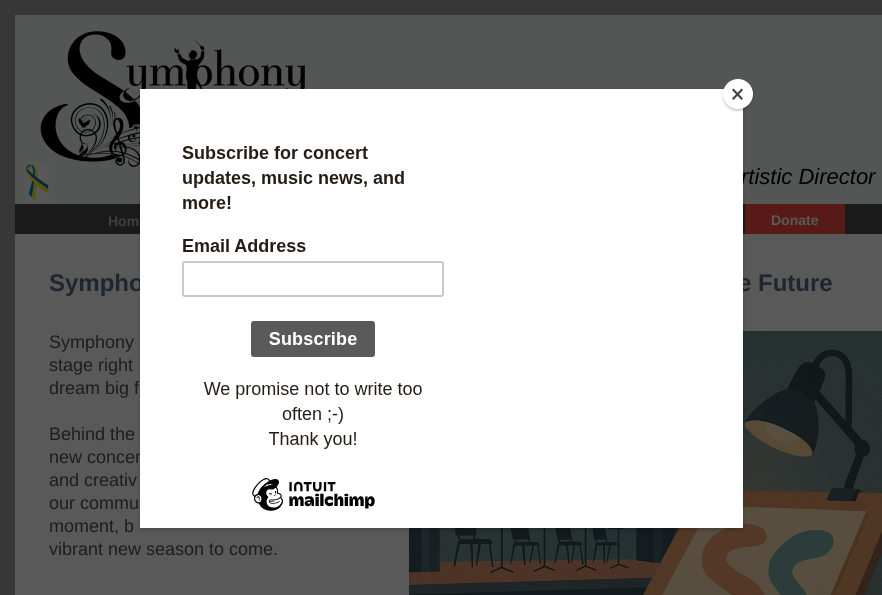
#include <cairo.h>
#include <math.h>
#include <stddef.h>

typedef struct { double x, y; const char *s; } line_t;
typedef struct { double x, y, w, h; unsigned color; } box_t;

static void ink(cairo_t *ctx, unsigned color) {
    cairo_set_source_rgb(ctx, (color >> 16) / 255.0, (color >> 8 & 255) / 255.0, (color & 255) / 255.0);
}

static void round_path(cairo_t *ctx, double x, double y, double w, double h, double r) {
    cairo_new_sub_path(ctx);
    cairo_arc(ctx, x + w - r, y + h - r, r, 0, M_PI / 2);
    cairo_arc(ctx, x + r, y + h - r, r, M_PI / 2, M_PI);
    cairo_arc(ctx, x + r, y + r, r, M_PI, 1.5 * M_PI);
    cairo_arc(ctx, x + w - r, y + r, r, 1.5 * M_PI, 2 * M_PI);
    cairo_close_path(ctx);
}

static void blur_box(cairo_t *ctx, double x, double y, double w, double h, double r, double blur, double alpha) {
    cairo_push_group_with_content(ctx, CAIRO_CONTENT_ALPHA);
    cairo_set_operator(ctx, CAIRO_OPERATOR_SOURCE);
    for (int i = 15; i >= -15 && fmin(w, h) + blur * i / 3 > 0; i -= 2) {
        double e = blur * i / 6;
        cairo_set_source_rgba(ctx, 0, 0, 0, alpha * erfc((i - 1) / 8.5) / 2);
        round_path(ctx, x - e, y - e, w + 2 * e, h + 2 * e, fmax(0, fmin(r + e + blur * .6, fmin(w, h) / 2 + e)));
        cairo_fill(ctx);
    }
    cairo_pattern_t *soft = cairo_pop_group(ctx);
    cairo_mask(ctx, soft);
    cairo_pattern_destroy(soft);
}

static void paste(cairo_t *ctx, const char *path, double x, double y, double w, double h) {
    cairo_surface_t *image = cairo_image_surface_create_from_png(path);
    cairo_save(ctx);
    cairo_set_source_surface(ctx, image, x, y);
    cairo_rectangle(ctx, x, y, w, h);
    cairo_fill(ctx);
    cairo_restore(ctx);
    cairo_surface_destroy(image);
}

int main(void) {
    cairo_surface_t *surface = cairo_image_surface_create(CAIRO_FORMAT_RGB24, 882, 595);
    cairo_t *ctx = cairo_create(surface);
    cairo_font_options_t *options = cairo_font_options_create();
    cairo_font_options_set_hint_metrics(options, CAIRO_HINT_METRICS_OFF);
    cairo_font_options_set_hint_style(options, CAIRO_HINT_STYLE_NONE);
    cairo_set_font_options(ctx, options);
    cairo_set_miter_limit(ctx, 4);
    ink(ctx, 0x373737);
    cairo_paint(ctx);
    ink(ctx, 0x545555);
    cairo_rectangle(ctx, 15, 15, 867, 189);
    cairo_fill(ctx);
    paste(ctx, "media/3.png", 25, 163, 25, 39);
    paste(ctx, "media/2.png", 40, 31, 265, 137);
    {
        static const box_t items[] = {
            {15, 204, 867, 30, 0x1A1A1A},
            {15, 234, 867, 361, 0x595959},
            {745, 204, 100, 30, 0x571A17},
        };
        for (size_t i = 0; i < sizeof items / sizeof *items; i++) {
            ink(ctx, items[i].color);
            cairo_rectangle(ctx, items[i].x, items[i].y, items[i].w, items[i].h);
            cairo_fill(ctx);
        }
    }
    paste(ctx, "media/4.png", 409, 331, 473, 264);
    ink(ctx, 0x000000);
    blur_box(ctx, 140, 91, 603, 439, 0, 2, 0.2);
    cairo_select_font_face(ctx, "Liberation Sans", CAIRO_FONT_SLANT_ITALIC, CAIRO_FONT_WEIGHT_NORMAL);
    cairo_set_font_size(ctx, 22);
    ink(ctx, 0x000000);
    cairo_move_to(ctx, 741, 184);
    cairo_show_text(ctx, "rtistic Director");
    cairo_select_font_face(ctx, "Liberation Sans", CAIRO_FONT_SLANT_NORMAL, CAIRO_FONT_WEIGHT_BOLD);
    cairo_set_font_size(ctx, 24);
    ink(ctx, 0x1E2631);
    cairo_move_to(ctx, 49, 291);
    cairo_show_text(ctx, "Sympho");
    cairo_move_to(ctx, 738, 291);
    cairo_show_text(ctx, "e Future");
    cairo_select_font_face(ctx, "Liberation Sans", CAIRO_FONT_SLANT_NORMAL, CAIRO_FONT_WEIGHT_NORMAL);
    cairo_set_font_size(ctx, 18);
    ink(ctx, 0x1D1D1D);
    cairo_move_to(ctx, 49, 463);
    cairo_show_text(ctx, "new concer");
    paste(ctx, "media/1.png", 140, 89, 603, 439);
    ink(ctx, 0x000000);
    blur_box(ctx, 723, 81, 30, 30, 15, 1, 0.2);
    ink(ctx, 0xFFFFFF);
    cairo_arc(ctx, 738, 94, 15, 0, 2 * M_PI);
    cairo_fill(ctx);
    ink(ctx, 0x414141);
    cairo_new_path(ctx);
    cairo_move_to(ctx, 741.5, 88.5);
    cairo_line_to(ctx, 743, 90);
    cairo_line_to(ctx, 733.5, 100);
    cairo_line_to(ctx, 732, 98.5);
    cairo_close_path(ctx);
    cairo_fill(ctx);
    cairo_new_path(ctx);
    cairo_move_to(ctx, 732, 90);
    cairo_line_to(ctx, 733.5, 88.5);
    cairo_line_to(ctx, 743, 98.5);
    cairo_line_to(ctx, 741.5, 100);
    cairo_close_path(ctx);
    cairo_fill(ctx);
    cairo_select_font_face(ctx, "Liberation Sans", CAIRO_FONT_SLANT_NORMAL, CAIRO_FONT_WEIGHT_BOLD);
    cairo_set_font_size(ctx, 14);
    ink(ctx, 0x3E3F3F);
    cairo_move_to(ctx, 108, 226);
    cairo_show_text(ctx, "Hom");
    ink(ctx, 0x595959);
    cairo_move_to(ctx, 771, 225);
    cairo_show_text(ctx, "Donate");
    cairo_select_font_face(ctx, "Liberation Sans", CAIRO_FONT_SLANT_NORMAL, CAIRO_FONT_WEIGHT_NORMAL);
    cairo_set_font_size(ctx, 18);
    ink(ctx, 0x1D1D1D);
    {
        static const line_t items[] = {
            {49, 348, "Symphony"},
            {49, 371, "stage right"},
            {49, 394, "dream big f"},
            {49, 440, "Behind the"},
            {49, 486, "and creativ"},
            {49, 509, "our commu"},
            {49, 532, "moment, b"},
            {49, 555, "vibrant new season to come."},
        };
        for (size_t i = 0; i < sizeof items / sizeof *items; i++) {
            cairo_move_to(ctx, items[i].x, items[i].y);
            cairo_show_text(ctx, items[i].s);
        }
    }
    cairo_surface_write_to_png(surface, "image.png");
    cairo_font_options_destroy(options);
    cairo_destroy(ctx);
    cairo_surface_destroy(surface);
    return 0;
}
